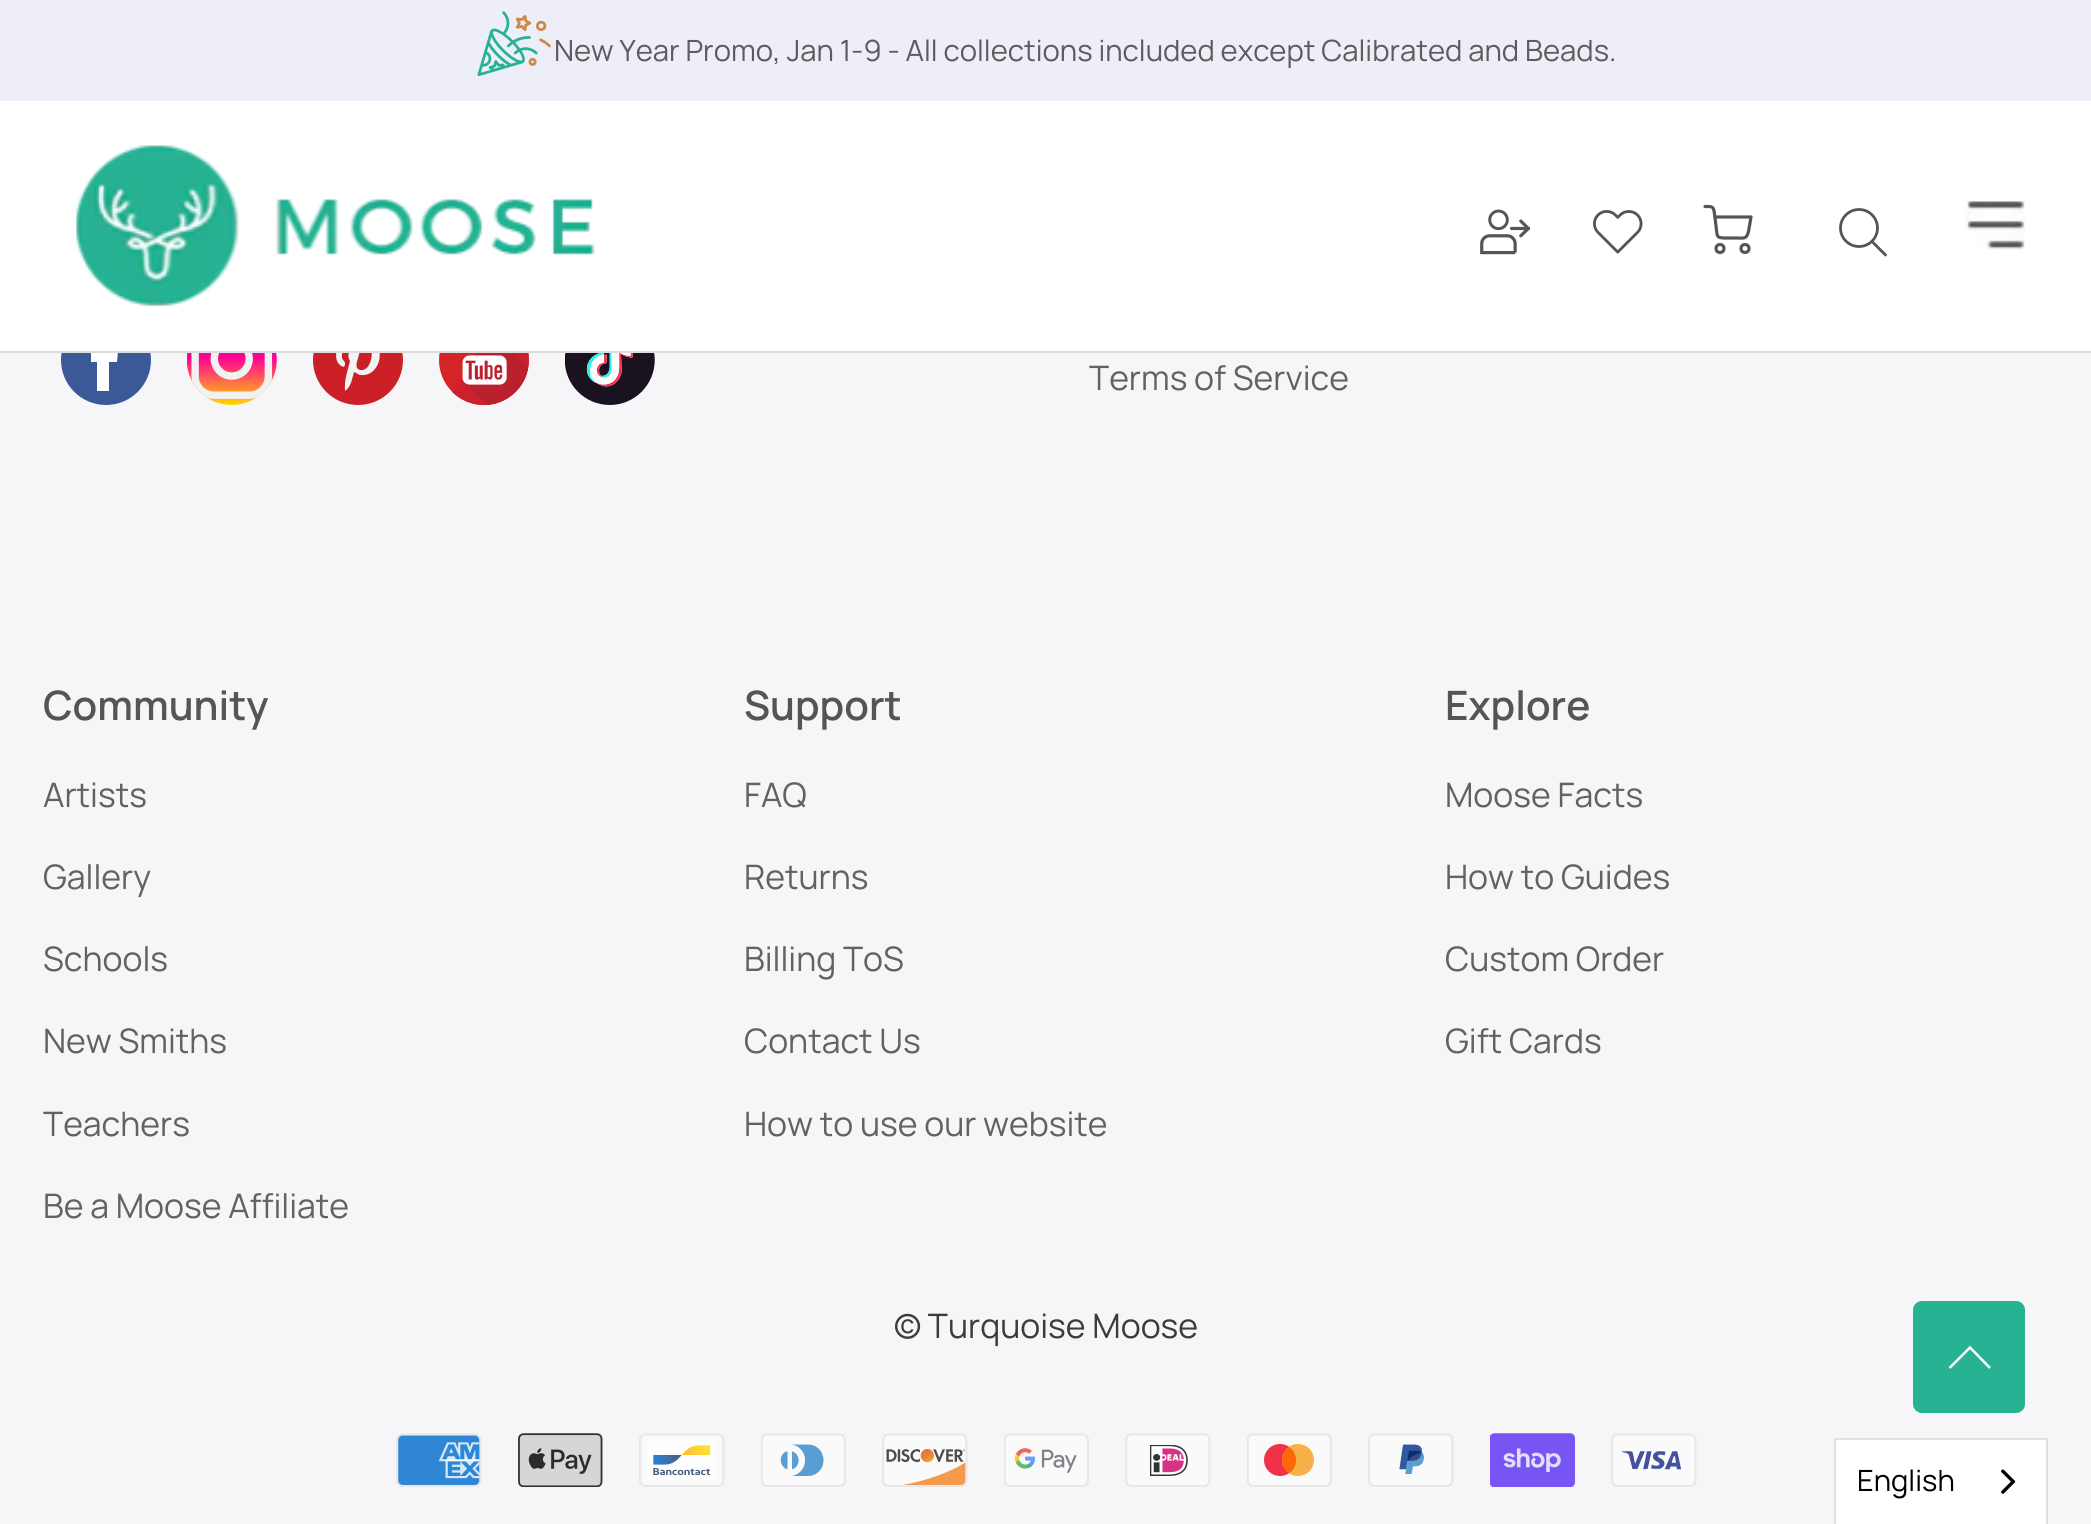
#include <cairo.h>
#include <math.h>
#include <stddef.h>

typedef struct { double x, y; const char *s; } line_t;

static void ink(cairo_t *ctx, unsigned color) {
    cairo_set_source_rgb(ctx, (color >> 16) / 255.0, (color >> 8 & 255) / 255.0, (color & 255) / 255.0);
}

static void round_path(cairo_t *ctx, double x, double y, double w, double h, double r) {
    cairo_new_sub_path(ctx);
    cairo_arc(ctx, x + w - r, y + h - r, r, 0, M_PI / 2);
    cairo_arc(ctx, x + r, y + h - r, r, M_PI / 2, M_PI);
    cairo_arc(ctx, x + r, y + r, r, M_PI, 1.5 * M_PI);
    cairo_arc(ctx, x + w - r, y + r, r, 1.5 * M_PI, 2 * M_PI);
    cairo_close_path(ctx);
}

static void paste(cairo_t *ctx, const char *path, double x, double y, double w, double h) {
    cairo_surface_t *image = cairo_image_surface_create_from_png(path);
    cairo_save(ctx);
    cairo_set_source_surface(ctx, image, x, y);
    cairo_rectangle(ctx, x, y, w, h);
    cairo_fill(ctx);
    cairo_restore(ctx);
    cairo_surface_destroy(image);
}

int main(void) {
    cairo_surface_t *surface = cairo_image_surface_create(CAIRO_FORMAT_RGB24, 2091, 1524);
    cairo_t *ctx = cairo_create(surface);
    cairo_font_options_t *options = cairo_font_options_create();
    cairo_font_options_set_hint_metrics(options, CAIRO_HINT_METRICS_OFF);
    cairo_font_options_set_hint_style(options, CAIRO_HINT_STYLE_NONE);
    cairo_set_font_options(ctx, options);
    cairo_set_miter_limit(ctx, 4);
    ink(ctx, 0xF6F6F9);
    cairo_paint(ctx);
    ink(ctx, 0xEDEEF7);
    cairo_rectangle(ctx, 0, 0, 2091, 101);
    cairo_fill(ctx);
    paste(ctx, "media/1.png", 477, 11, 74, 66);
    cairo_select_font_face(ctx, "Manrope", CAIRO_FONT_SLANT_NORMAL, CAIRO_FONT_WEIGHT_NORMAL);
    cairo_set_font_size(ctx, 29.25);
    ink(ctx, 0x5C5C5C);
    cairo_move_to(ctx, 554, 61);
    cairo_show_text(ctx, "New Year Promo, Jan 1-9 - All collections included except Calibrated and Beads.");
    ink(ctx, 0x3B5998);
    cairo_new_path(ctx);
    cairo_arc(ctx, 106, 360, 45, 0, 2 * M_PI);
    cairo_fill(ctx);
    ink(ctx, 0xFFFFFF);
    cairo_new_path(ctx);
    cairo_move_to(ctx, 117, 362);
    cairo_line_to(ctx, 109, 362);
    cairo_line_to(ctx, 109, 391);
    cairo_line_to(ctx, 97, 391);
    cairo_line_to(ctx, 97, 362);
    cairo_line_to(ctx, 91, 362);
    cairo_line_to(ctx, 91, 351);
    cairo_line_to(ctx, 97, 351);
    cairo_curve_to(ctx, 97, 333, 101, 332, 118, 332);
    cairo_line_to(ctx, 118, 343);
    cairo_curve_to(ctx, 109, 343, 109, 342, 109, 351);
    cairo_line_to(ctx, 118, 351);
    cairo_close_path(ctx);
    cairo_fill(ctx);
    ink(ctx, 0xCB2027);
    cairo_arc(ctx, 358, 360, 45, 0, 2 * M_PI);
    cairo_fill(ctx);
    ink(ctx, 0xF1F2F2);
    cairo_new_path(ctx);
    cairo_move_to(ctx, 361, 375);
    cairo_curve_to(ctx, 358, 375, 357, 373, 354, 372);
    cairo_curve_to(ctx, 352, 379, 351, 387, 345, 391);
    cairo_curve_to(ctx, 344, 379, 348, 370, 350, 361);
    cairo_curve_to(ctx, 346, 356, 350, 345, 357, 347);
    cairo_curve_to(ctx, 365, 351, 350, 367, 360, 370);
    cairo_curve_to(ctx, 371, 372, 375, 351, 369, 344);
    cairo_curve_to(ctx, 359, 334, 340, 344, 342, 358);
    cairo_curve_to(ctx, 343, 361, 347, 362, 344, 367);
    cairo_curve_to(ctx, 328, 363, 337, 330, 363, 335);
    cairo_curve_to(ctx, 389, 340, 382, 377, 361, 375);
    cairo_close_path(ctx);
    cairo_fill(ctx);
    ink(ctx, 0xFFFFFF);
    cairo_rectangle(ctx, 0, 101, 2091, 250);
    cairo_fill(ctx);
    ink(ctx, 0xDCDCDC);
    cairo_rectangle(ctx, 0, 351, 2091, 2);
    cairo_fill(ctx);
    paste(ctx, "media/2.png", 76, 145, 519, 162);
    paste(ctx, "media/3.png", 1480, 209, 50, 46);
    paste(ctx, "media/4.png", 1593, 210, 50, 44);
    cairo_new_path(ctx);
    cairo_move_to(ctx, 1715, 217);
    cairo_line_to(ctx, 1751, 217);
    cairo_line_to(ctx, 1748.5, 231.5);
    cairo_curve_to(ctx, 1746.5, 239.5, 1744, 238, 1736, 238);
    cairo_line_to(ctx, 1725, 238);
    cairo_curve_to(ctx, 1715.5, 238, 1717.5, 235.5, 1716, 226);
    cairo_line_to(ctx, 1714.5, 214);
    cairo_curve_to(ctx, 1713.5, 206, 1712.5, 206.5, 1705, 206.5);
    ink(ctx, 0x555555);
    cairo_set_line_width(ctx, 3.2);
    cairo_set_line_cap(ctx, CAIRO_LINE_CAP_ROUND);
    cairo_set_line_join(ctx, CAIRO_LINE_JOIN_ROUND);
    cairo_stroke(ctx);
    cairo_arc(ctx, 1720, 248.5, 4, 0, 2 * M_PI);
    cairo_set_line_cap(ctx, CAIRO_LINE_CAP_BUTT);
    cairo_set_line_join(ctx, CAIRO_LINE_JOIN_MITER);
    cairo_stroke(ctx);
    cairo_arc(ctx, 1745, 248.5, 4, 0, 2 * M_PI);
    cairo_stroke(ctx);
    cairo_arc(ctx, 1859, 228, 18.5, 0, 2 * M_PI);
    cairo_set_line_width(ctx, 2.8);
    cairo_stroke(ctx);
    cairo_new_path(ctx);
    cairo_move_to(ctx, 1885.5, 255);
    cairo_line_to(ctx, 1872, 241.5);
    cairo_set_line_cap(ctx, CAIRO_LINE_CAP_ROUND);
    cairo_set_line_join(ctx, CAIRO_LINE_JOIN_ROUND);
    cairo_stroke(ctx);
    paste(ctx, "media/5.png", 1964, 200, 61, 50);
    paste(ctx, "media/6.png", 187, 353, 90, 52);
    paste(ctx, "media/7.png", 439, 353, 90, 52);
    paste(ctx, "media/8.png", 565, 353, 90, 52);
    cairo_set_font_size(ctx, 33.75);
    ink(ctx, 0x626262);
    cairo_move_to(ctx, 1089, 390);
    cairo_show_text(ctx, "Terms of Service");
    cairo_select_font_face(ctx, "Manrope SemiBold", CAIRO_FONT_SLANT_NORMAL, CAIRO_FONT_WEIGHT_NORMAL);
    cairo_set_font_size(ctx, 40.5);
    ink(ctx, 0x555555);
    cairo_move_to(ctx, 43, 720);
    cairo_show_text(ctx, "Community");
    cairo_select_font_face(ctx, "Manrope", CAIRO_FONT_SLANT_NORMAL, CAIRO_FONT_WEIGHT_NORMAL);
    cairo_set_font_size(ctx, 33.75);
    ink(ctx, 0x626262);
    {
        static const line_t items[] = {
            {43, 807, "Artists"},
            {43, 889, "Gallery"},
            {43, 971, "Schools"},
            {43, 1053, "New Smiths"},
            {43, 1136, "Teachers"},
            {43, 1218, "Be a Moose Affiliate"},
        };
        for (size_t i = 0; i < sizeof items / sizeof *items; i++) {
            cairo_move_to(ctx, items[i].x, items[i].y);
            cairo_show_text(ctx, items[i].s);
        }
    }
    cairo_select_font_face(ctx, "Manrope SemiBold", CAIRO_FONT_SLANT_NORMAL, CAIRO_FONT_WEIGHT_NORMAL);
    cairo_set_font_size(ctx, 40.5);
    ink(ctx, 0x555555);
    cairo_move_to(ctx, 744, 720);
    cairo_show_text(ctx, "Support");
    cairo_select_font_face(ctx, "Manrope", CAIRO_FONT_SLANT_NORMAL, CAIRO_FONT_WEIGHT_NORMAL);
    cairo_set_font_size(ctx, 33.75);
    ink(ctx, 0x626262);
    {
        static const line_t items[] = {
            {744, 807, "FAQ"},
            {744, 889, "Returns"},
            {744, 971, "Billing ToS"},
            {744, 1053, "Contact Us"},
            {744, 1136, "How to use our website"},
        };
        for (size_t i = 0; i < sizeof items / sizeof *items; i++) {
            cairo_move_to(ctx, items[i].x, items[i].y);
            cairo_show_text(ctx, items[i].s);
        }
    }
    cairo_select_font_face(ctx, "Manrope SemiBold", CAIRO_FONT_SLANT_NORMAL, CAIRO_FONT_WEIGHT_NORMAL);
    cairo_set_font_size(ctx, 40.5);
    ink(ctx, 0x555555);
    cairo_move_to(ctx, 1445, 720);
    cairo_show_text(ctx, "Explore");
    cairo_select_font_face(ctx, "Manrope", CAIRO_FONT_SLANT_NORMAL, CAIRO_FONT_WEIGHT_NORMAL);
    cairo_set_font_size(ctx, 33.75);
    ink(ctx, 0x626262);
    {
        static const line_t items[] = {
            {1445, 807, "Moose Facts"},
            {1445, 889, "How to Guides"},
            {1445, 971, "Custom Order"},
            {1445, 1053, "Gift Cards"},
        };
        for (size_t i = 0; i < sizeof items / sizeof *items; i++) {
            cairo_move_to(ctx, items[i].x, items[i].y);
            cairo_show_text(ctx, items[i].s);
        }
    }
    ink(ctx, 0x3C3C3C);
    cairo_move_to(ctx, 894, 1338);
    cairo_show_text(ctx, "© Turquoise Moose");
    paste(ctx, "media/9.png", 396, 1433, 86, 54);
    paste(ctx, "media/10.png", 518, 1433, 85, 54);
    paste(ctx, "media/11.png", 639, 1433, 86, 54);
    paste(ctx, "media/12.png", 761, 1433, 85, 54);
    paste(ctx, "media/13.png", 882, 1433, 86, 54);
    paste(ctx, "media/14.png", 1004, 1433, 85, 54);
    paste(ctx, "media/15.png", 1125, 1433, 86, 54);
    paste(ctx, "media/16.png", 1247, 1433, 85, 54);
    paste(ctx, "media/17.png", 1368, 1433, 86, 54);
    paste(ctx, "media/18.png", 1490, 1433, 85, 54);
    paste(ctx, "media/19.png", 1611, 1433, 86, 54);
    ink(ctx, 0x27B293);
    round_path(ctx, 1913, 1301, 112, 112, 9);
    cairo_fill(ctx);
    cairo_new_path(ctx);
    cairo_move_to(ctx, 1990, 1368);
    cairo_line_to(ctx, 1970, 1347.5);
    cairo_line_to(ctx, 1949.5, 1368);
    ink(ctx, 0xFFFFFF);
    cairo_set_line_width(ctx, 2.5);
    cairo_set_line_cap(ctx, CAIRO_LINE_CAP_BUTT);
    cairo_set_line_join(ctx, CAIRO_LINE_JOIN_MITER);
    cairo_stroke(ctx);
    cairo_rectangle(ctx, 1835, 1439, 212, 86);
    cairo_fill_preserve(ctx);
    ink(ctx, 0xE0E0E0);
    cairo_set_line_width(ctx, 2);
    cairo_stroke(ctx);
    cairo_set_font_size(ctx, 29.25);
    ink(ctx, 0x000000);
    cairo_move_to(ctx, 1857, 1491);
    cairo_show_text(ctx, "English");
    paste(ctx, "media/20.png", 2001, 1469, 15, 25);
    cairo_surface_write_to_png(surface, "image.png");
    cairo_font_options_destroy(options);
    cairo_destroy(ctx);
    cairo_surface_destroy(surface);
    return 0;
}
